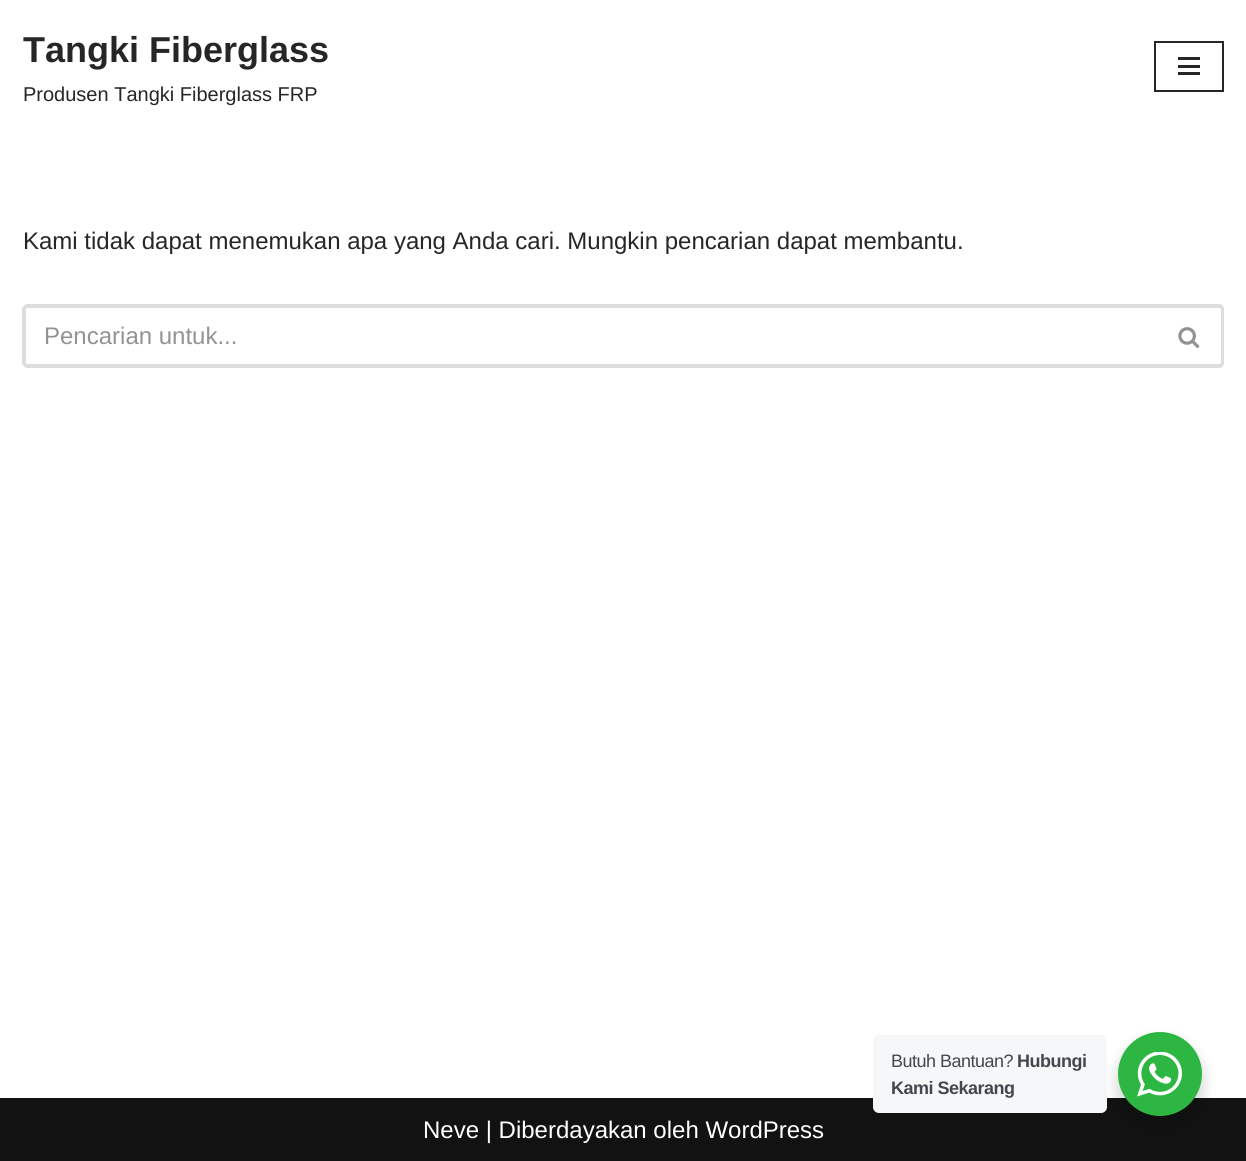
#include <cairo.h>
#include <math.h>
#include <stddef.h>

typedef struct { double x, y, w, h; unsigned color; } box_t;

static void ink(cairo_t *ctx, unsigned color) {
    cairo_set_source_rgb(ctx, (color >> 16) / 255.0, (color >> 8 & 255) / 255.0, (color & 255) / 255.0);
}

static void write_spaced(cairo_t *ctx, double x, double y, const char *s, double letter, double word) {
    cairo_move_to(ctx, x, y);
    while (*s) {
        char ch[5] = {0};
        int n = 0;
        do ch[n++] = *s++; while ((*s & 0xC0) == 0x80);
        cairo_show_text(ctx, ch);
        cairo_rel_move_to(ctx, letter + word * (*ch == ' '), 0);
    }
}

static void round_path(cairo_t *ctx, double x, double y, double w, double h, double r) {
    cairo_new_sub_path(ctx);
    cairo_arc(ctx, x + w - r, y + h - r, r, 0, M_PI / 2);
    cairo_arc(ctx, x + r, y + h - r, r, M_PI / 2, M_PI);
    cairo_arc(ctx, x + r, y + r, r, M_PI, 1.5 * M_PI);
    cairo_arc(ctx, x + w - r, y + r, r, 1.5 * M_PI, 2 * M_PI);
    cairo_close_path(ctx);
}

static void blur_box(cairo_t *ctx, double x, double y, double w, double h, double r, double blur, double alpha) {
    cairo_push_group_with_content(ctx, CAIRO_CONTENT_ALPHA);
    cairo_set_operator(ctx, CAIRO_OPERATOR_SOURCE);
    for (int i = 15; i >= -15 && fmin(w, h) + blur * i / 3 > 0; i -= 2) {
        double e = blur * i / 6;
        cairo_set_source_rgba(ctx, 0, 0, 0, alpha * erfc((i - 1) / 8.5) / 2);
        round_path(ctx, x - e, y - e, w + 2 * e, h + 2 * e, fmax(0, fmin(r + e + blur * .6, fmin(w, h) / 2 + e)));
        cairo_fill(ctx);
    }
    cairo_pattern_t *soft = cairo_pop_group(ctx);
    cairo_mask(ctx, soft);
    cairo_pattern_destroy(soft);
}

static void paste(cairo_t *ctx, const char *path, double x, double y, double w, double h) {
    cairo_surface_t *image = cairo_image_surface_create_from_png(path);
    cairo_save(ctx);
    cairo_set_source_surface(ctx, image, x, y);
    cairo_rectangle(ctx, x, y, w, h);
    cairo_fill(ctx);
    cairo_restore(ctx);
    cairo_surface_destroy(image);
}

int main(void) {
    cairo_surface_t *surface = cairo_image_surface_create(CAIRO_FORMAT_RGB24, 1246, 1161);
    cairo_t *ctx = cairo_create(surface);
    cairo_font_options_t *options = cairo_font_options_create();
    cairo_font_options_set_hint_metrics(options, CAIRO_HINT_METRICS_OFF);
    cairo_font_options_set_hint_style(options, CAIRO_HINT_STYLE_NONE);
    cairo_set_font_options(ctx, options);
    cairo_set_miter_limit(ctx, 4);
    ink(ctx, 0xFFFFFF);
    cairo_paint(ctx);
    cairo_select_font_face(ctx, "Liberation Sans", CAIRO_FONT_SLANT_NORMAL, CAIRO_FONT_WEIGHT_BOLD);
    cairo_set_font_size(ctx, 36);
    ink(ctx, 0x272626);
    cairo_move_to(ctx, 23, 62);
    cairo_show_text(ctx, "Tangki Fiberglass");
    cairo_select_font_face(ctx, "Liberation Sans", CAIRO_FONT_SLANT_NORMAL, CAIRO_FONT_WEIGHT_NORMAL);
    cairo_set_font_size(ctx, 20);
    cairo_move_to(ctx, 23, 101);
    cairo_show_text(ctx, "Produsen Tangki Fiberglass FRP");
    cairo_rectangle(ctx, 1155, 42, 68, 49);
    cairo_stroke(ctx);
    {
        static const box_t items[] = {
            {1178, 57, 22, 3, 0x272626},
            {1178, 65, 22, 3, 0x272626},
            {1178, 72, 22, 3, 0x272626},
        };
        for (size_t i = 0; i < sizeof items / sizeof *items; i++) {
            ink(ctx, items[i].color);
            cairo_rectangle(ctx, items[i].x, items[i].y, items[i].w, items[i].h);
            cairo_fill(ctx);
        }
    }
    cairo_set_font_size(ctx, 24);
    cairo_move_to(ctx, 23, 249);
    cairo_show_text(ctx, "Kami tidak dapat menemukan apa yang Anda cari. Mungkin pencarian dapat membantu.");
    ink(ctx, 0xDDDDDD);
    cairo_set_fill_rule(ctx, CAIRO_FILL_RULE_EVEN_ODD);
    cairo_new_path(ctx);
    cairo_move_to(ctx, 27, 304);
    cairo_line_to(ctx, 1156, 304);
    cairo_line_to(ctx, 1156, 368);
    cairo_line_to(ctx, 27, 368);
    cairo_curve_to(ctx, 25, 368, 22, 365, 22, 363);
    cairo_line_to(ctx, 22, 309);
    cairo_curve_to(ctx, 22, 307, 25, 304, 27, 304);
    cairo_close_path(ctx);
    cairo_move_to(ctx, 27, 308);
    cairo_line_to(ctx, 1156, 308);
    cairo_line_to(ctx, 1156, 364);
    cairo_line_to(ctx, 27, 364);
    cairo_curve_to(ctx, 26, 364, 26, 364, 26, 363);
    cairo_line_to(ctx, 26, 309);
    cairo_curve_to(ctx, 26, 308, 26, 308, 27, 308);
    cairo_close_path(ctx);
    cairo_fill(ctx);
    ink(ctx, 0x939393);
    cairo_move_to(ctx, 44, 344);
    cairo_show_text(ctx, "Pencarian untuk...");
    ink(ctx, 0xDDDDDD);
    cairo_new_path(ctx);
    cairo_move_to(ctx, 1156, 304);
    cairo_line_to(ctx, 1220, 304);
    cairo_curve_to(ctx, 1222, 304, 1224, 307, 1224, 309);
    cairo_line_to(ctx, 1224, 363);
    cairo_curve_to(ctx, 1224, 365, 1222, 368, 1220, 368);
    cairo_line_to(ctx, 1156, 368);
    cairo_close_path(ctx);
    cairo_move_to(ctx, 1156, 308);
    cairo_line_to(ctx, 1220, 308);
    cairo_curve_to(ctx, 1220, 308, 1221, 308, 1221, 309);
    cairo_line_to(ctx, 1221, 363);
    cairo_curve_to(ctx, 1221, 364, 1220, 364, 1220, 364);
    cairo_line_to(ctx, 1156, 364);
    cairo_close_path(ctx);
    cairo_fill(ctx);
    paste(ctx, "media/1.png", 1178, 327, 22, 21);
    ink(ctx, 0x121212);
    cairo_rectangle(ctx, 0, 1098, 1246, 63);
    cairo_fill(ctx);
    ink(ctx, 0xFFFFFF);
    cairo_move_to(ctx, 423, 1138);
    cairo_show_text(ctx, "Neve | Diberdayakan oleh WordPress");
    ink(ctx, 0x000000);
    blur_box(ctx, 1115, 1038, 90, 90, 45, 6, 0.14);
    ink(ctx, 0xF5F7F9);
    round_path(ctx, 873, 1035, 234, 78, 6);
    cairo_fill(ctx);
    cairo_set_font_size(ctx, 18);
    ink(ctx, 0x43474E);
    write_spaced(ctx, 891, 1067, "Butuh Bantuan?", -0.5, 0);
    cairo_select_font_face(ctx, "Liberation Sans", CAIRO_FONT_SLANT_NORMAL, CAIRO_FONT_WEIGHT_BOLD);
    write_spaced(ctx, 1017, 1067, "Hubungi", -0.5, 0);
    write_spaced(ctx, 891, 1094, "Kami Sekarang", -0.5, 0);
    ink(ctx, 0x2DB742);
    cairo_new_path(ctx);
    cairo_arc(ctx, 1160, 1074, 42, 0, 2 * M_PI);
    cairo_fill(ctx);
    paste(ctx, "media/2.png", 1137, 1052, 45, 45);
    cairo_surface_write_to_png(surface, "image.png");
    cairo_font_options_destroy(options);
    cairo_destroy(ctx);
    cairo_surface_destroy(surface);
    return 0;
}
